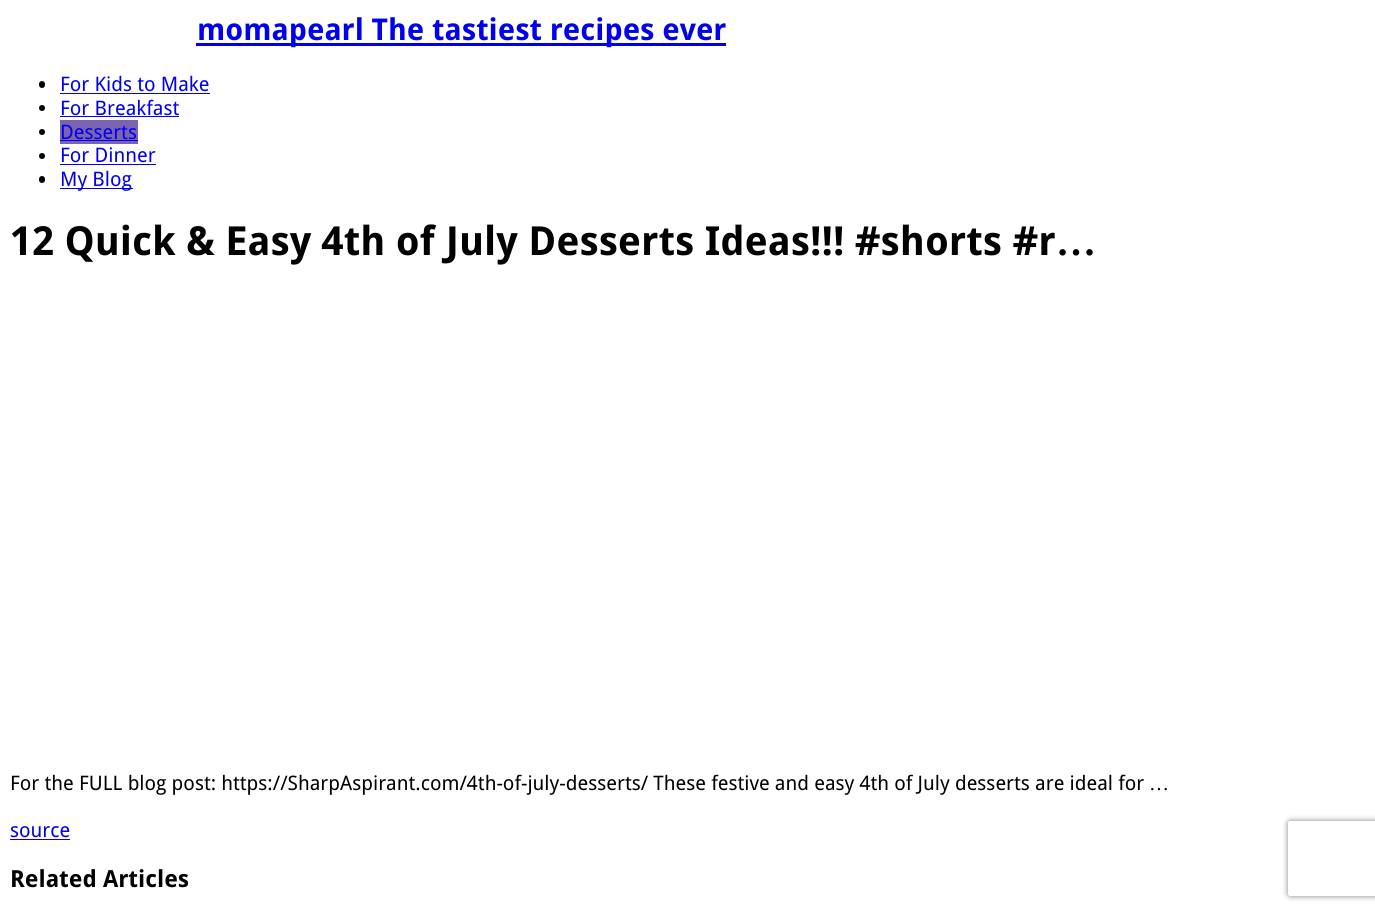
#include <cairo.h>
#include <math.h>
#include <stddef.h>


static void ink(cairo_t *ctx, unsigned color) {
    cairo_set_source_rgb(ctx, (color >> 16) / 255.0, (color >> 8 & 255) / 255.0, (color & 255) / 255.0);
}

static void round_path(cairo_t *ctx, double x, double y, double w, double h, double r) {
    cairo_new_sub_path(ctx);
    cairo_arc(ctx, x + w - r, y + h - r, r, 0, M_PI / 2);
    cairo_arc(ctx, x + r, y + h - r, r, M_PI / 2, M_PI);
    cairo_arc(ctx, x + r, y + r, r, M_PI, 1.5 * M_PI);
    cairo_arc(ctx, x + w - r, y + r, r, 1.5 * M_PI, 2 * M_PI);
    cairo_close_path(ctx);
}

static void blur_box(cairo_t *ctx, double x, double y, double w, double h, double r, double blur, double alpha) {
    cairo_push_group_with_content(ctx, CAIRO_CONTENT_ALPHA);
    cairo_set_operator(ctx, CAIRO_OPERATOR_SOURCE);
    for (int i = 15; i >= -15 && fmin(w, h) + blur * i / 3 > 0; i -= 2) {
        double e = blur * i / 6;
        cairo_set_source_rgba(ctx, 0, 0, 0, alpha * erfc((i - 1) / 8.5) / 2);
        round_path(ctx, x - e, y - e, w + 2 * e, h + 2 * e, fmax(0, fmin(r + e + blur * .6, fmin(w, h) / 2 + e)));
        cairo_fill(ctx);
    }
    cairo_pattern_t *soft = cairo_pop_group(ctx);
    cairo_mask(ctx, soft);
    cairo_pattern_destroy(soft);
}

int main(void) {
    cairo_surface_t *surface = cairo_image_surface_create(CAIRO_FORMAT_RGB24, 1375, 913);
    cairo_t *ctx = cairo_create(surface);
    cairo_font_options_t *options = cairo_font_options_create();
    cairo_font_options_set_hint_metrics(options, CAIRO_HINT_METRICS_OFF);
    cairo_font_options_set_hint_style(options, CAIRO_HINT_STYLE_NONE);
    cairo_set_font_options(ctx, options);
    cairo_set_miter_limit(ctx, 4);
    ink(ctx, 0xFFFFFF);
    cairo_paint(ctx);
    ink(ctx, 0x0000EE);
    cairo_rectangle(ctx, 196, 43, 530, 3);
    cairo_fill(ctx);
    cairo_select_font_face(ctx, "Droid Sans", CAIRO_FONT_SLANT_NORMAL, CAIRO_FONT_WEIGHT_BOLD);
    cairo_set_font_size(ctx, 30);
    cairo_move_to(ctx, 197, 40);
    cairo_show_text(ctx, "momapearl The tastiest recipes ever");
    ink(ctx, 0x000000);
    round_path(ctx, 39, 81, 6, 7, 3);
    cairo_fill(ctx);
    cairo_select_font_face(ctx, "Droid Sans", CAIRO_FONT_SLANT_NORMAL, CAIRO_FONT_WEIGHT_NORMAL);
    cairo_set_font_size(ctx, 20);
    ink(ctx, 0x0000EE);
    cairo_move_to(ctx, 60, 91);
    cairo_show_text(ctx, "For Kids to Make");
    cairo_rectangle(ctx, 60, 93, 150, 1);
    cairo_fill(ctx);
    ink(ctx, 0x000000);
    cairo_arc(ctx, 42, 108, 3, 0, 2 * M_PI);
    cairo_fill(ctx);
    ink(ctx, 0x0000EE);
    cairo_move_to(ctx, 60, 115);
    cairo_show_text(ctx, "For Breakfast");
    cairo_rectangle(ctx, 60, 116, 119, 1);
    cairo_fill(ctx);
    ink(ctx, 0x000000);
    cairo_arc(ctx, 42, 132, 3, 0, 2 * M_PI);
    cairo_fill(ctx);
    ink(ctx, 0x7A63B1);
    cairo_rectangle(ctx, 60, 120, 78, 24);
    cairo_fill(ctx);
    ink(ctx, 0x0000EE);
    cairo_move_to(ctx, 60, 139);
    cairo_show_text(ctx, "Desserts");
    cairo_rectangle(ctx, 60, 140, 78, 1);
    cairo_fill(ctx);
    ink(ctx, 0x000000);
    cairo_arc(ctx, 42, 156, 3, 0, 2 * M_PI);
    cairo_fill(ctx);
    ink(ctx, 0x0000EE);
    cairo_move_to(ctx, 60, 162);
    cairo_show_text(ctx, "For Dinner");
    cairo_rectangle(ctx, 60, 164, 96, 1);
    cairo_fill(ctx);
    ink(ctx, 0x000000);
    round_path(ctx, 39, 176, 6, 7, 3);
    cairo_fill(ctx);
    ink(ctx, 0x0000EE);
    cairo_rectangle(ctx, 60, 188, 73, 1);
    cairo_fill(ctx);
    cairo_move_to(ctx, 60, 186);
    cairo_show_text(ctx, "My Blog");
    cairo_select_font_face(ctx, "Droid Sans", CAIRO_FONT_SLANT_NORMAL, CAIRO_FONT_WEIGHT_BOLD);
    cairo_set_font_size(ctx, 40);
    ink(ctx, 0x000000);
    cairo_move_to(ctx, 10, 255);
    cairo_show_text(ctx, "12 Quick & Easy 4th of July Desserts Ideas!!! #shorts #r");
    cairo_select_font_face(ctx, "Liberation Serif", CAIRO_FONT_SLANT_NORMAL, CAIRO_FONT_WEIGHT_BOLD);
    cairo_move_to(ctx, 1056, 255);
    cairo_show_text(ctx, "…");
    cairo_select_font_face(ctx, "Droid Sans", CAIRO_FONT_SLANT_NORMAL, CAIRO_FONT_WEIGHT_NORMAL);
    cairo_set_font_size(ctx, 20);
    cairo_move_to(ctx, 10, 790);
    cairo_show_text(ctx, "For the FULL blog post: https://SharpAspirant.com/4th-of-july-desserts/ These festive and easy 4th of July desserts are ideal for");
    cairo_select_font_face(ctx, "Liberation Serif", CAIRO_FONT_SLANT_NORMAL, CAIRO_FONT_WEIGHT_NORMAL);
    cairo_move_to(ctx, 1149, 790);
    cairo_show_text(ctx, "…");
    cairo_select_font_face(ctx, "Droid Sans", CAIRO_FONT_SLANT_NORMAL, CAIRO_FONT_WEIGHT_NORMAL);
    ink(ctx, 0x0000EE);
    cairo_move_to(ctx, 10, 837);
    cairo_show_text(ctx, "source");
    cairo_rectangle(ctx, 10, 839, 60, 1);
    cairo_fill(ctx);
    cairo_select_font_face(ctx, "Droid Sans", CAIRO_FONT_SLANT_NORMAL, CAIRO_FONT_WEIGHT_BOLD);
    cairo_set_font_size(ctx, 23.5);
    ink(ctx, 0x000000);
    cairo_move_to(ctx, 10, 887);
    cairo_show_text(ctx, "Related Articles");
    cairo_save(ctx);
    cairo_set_fill_rule(ctx, CAIRO_FILL_RULE_EVEN_ODD);
    cairo_new_path(ctx);
    cairo_move_to(ctx, 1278, 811);
    cairo_line_to(ctx, 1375, 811);
    cairo_line_to(ctx, 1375, 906);
    cairo_line_to(ctx, 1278, 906);
    cairo_close_path(ctx);
    cairo_move_to(ctx, 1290.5, 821);
    cairo_line_to(ctx, 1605.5, 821);
    cairo_curve_to(ctx, 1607, 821, 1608, 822, 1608, 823.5);
    cairo_line_to(ctx, 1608, 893.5);
    cairo_curve_to(ctx, 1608, 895, 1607, 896, 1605.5, 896);
    cairo_line_to(ctx, 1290.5, 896);
    cairo_curve_to(ctx, 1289, 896, 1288, 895, 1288, 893.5);
    cairo_line_to(ctx, 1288, 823.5);
    cairo_curve_to(ctx, 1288, 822, 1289, 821, 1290.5, 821);
    cairo_close_path(ctx);
    cairo_clip(ctx);
    ink(ctx, 0x808080);
    blur_box(ctx, 1288, 821, 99, 75, 2.5, 3, 1);
    cairo_restore(ctx);
    cairo_surface_write_to_png(surface, "image.png");
    cairo_font_options_destroy(options);
    cairo_destroy(ctx);
    cairo_surface_destroy(surface);
    return 0;
}
